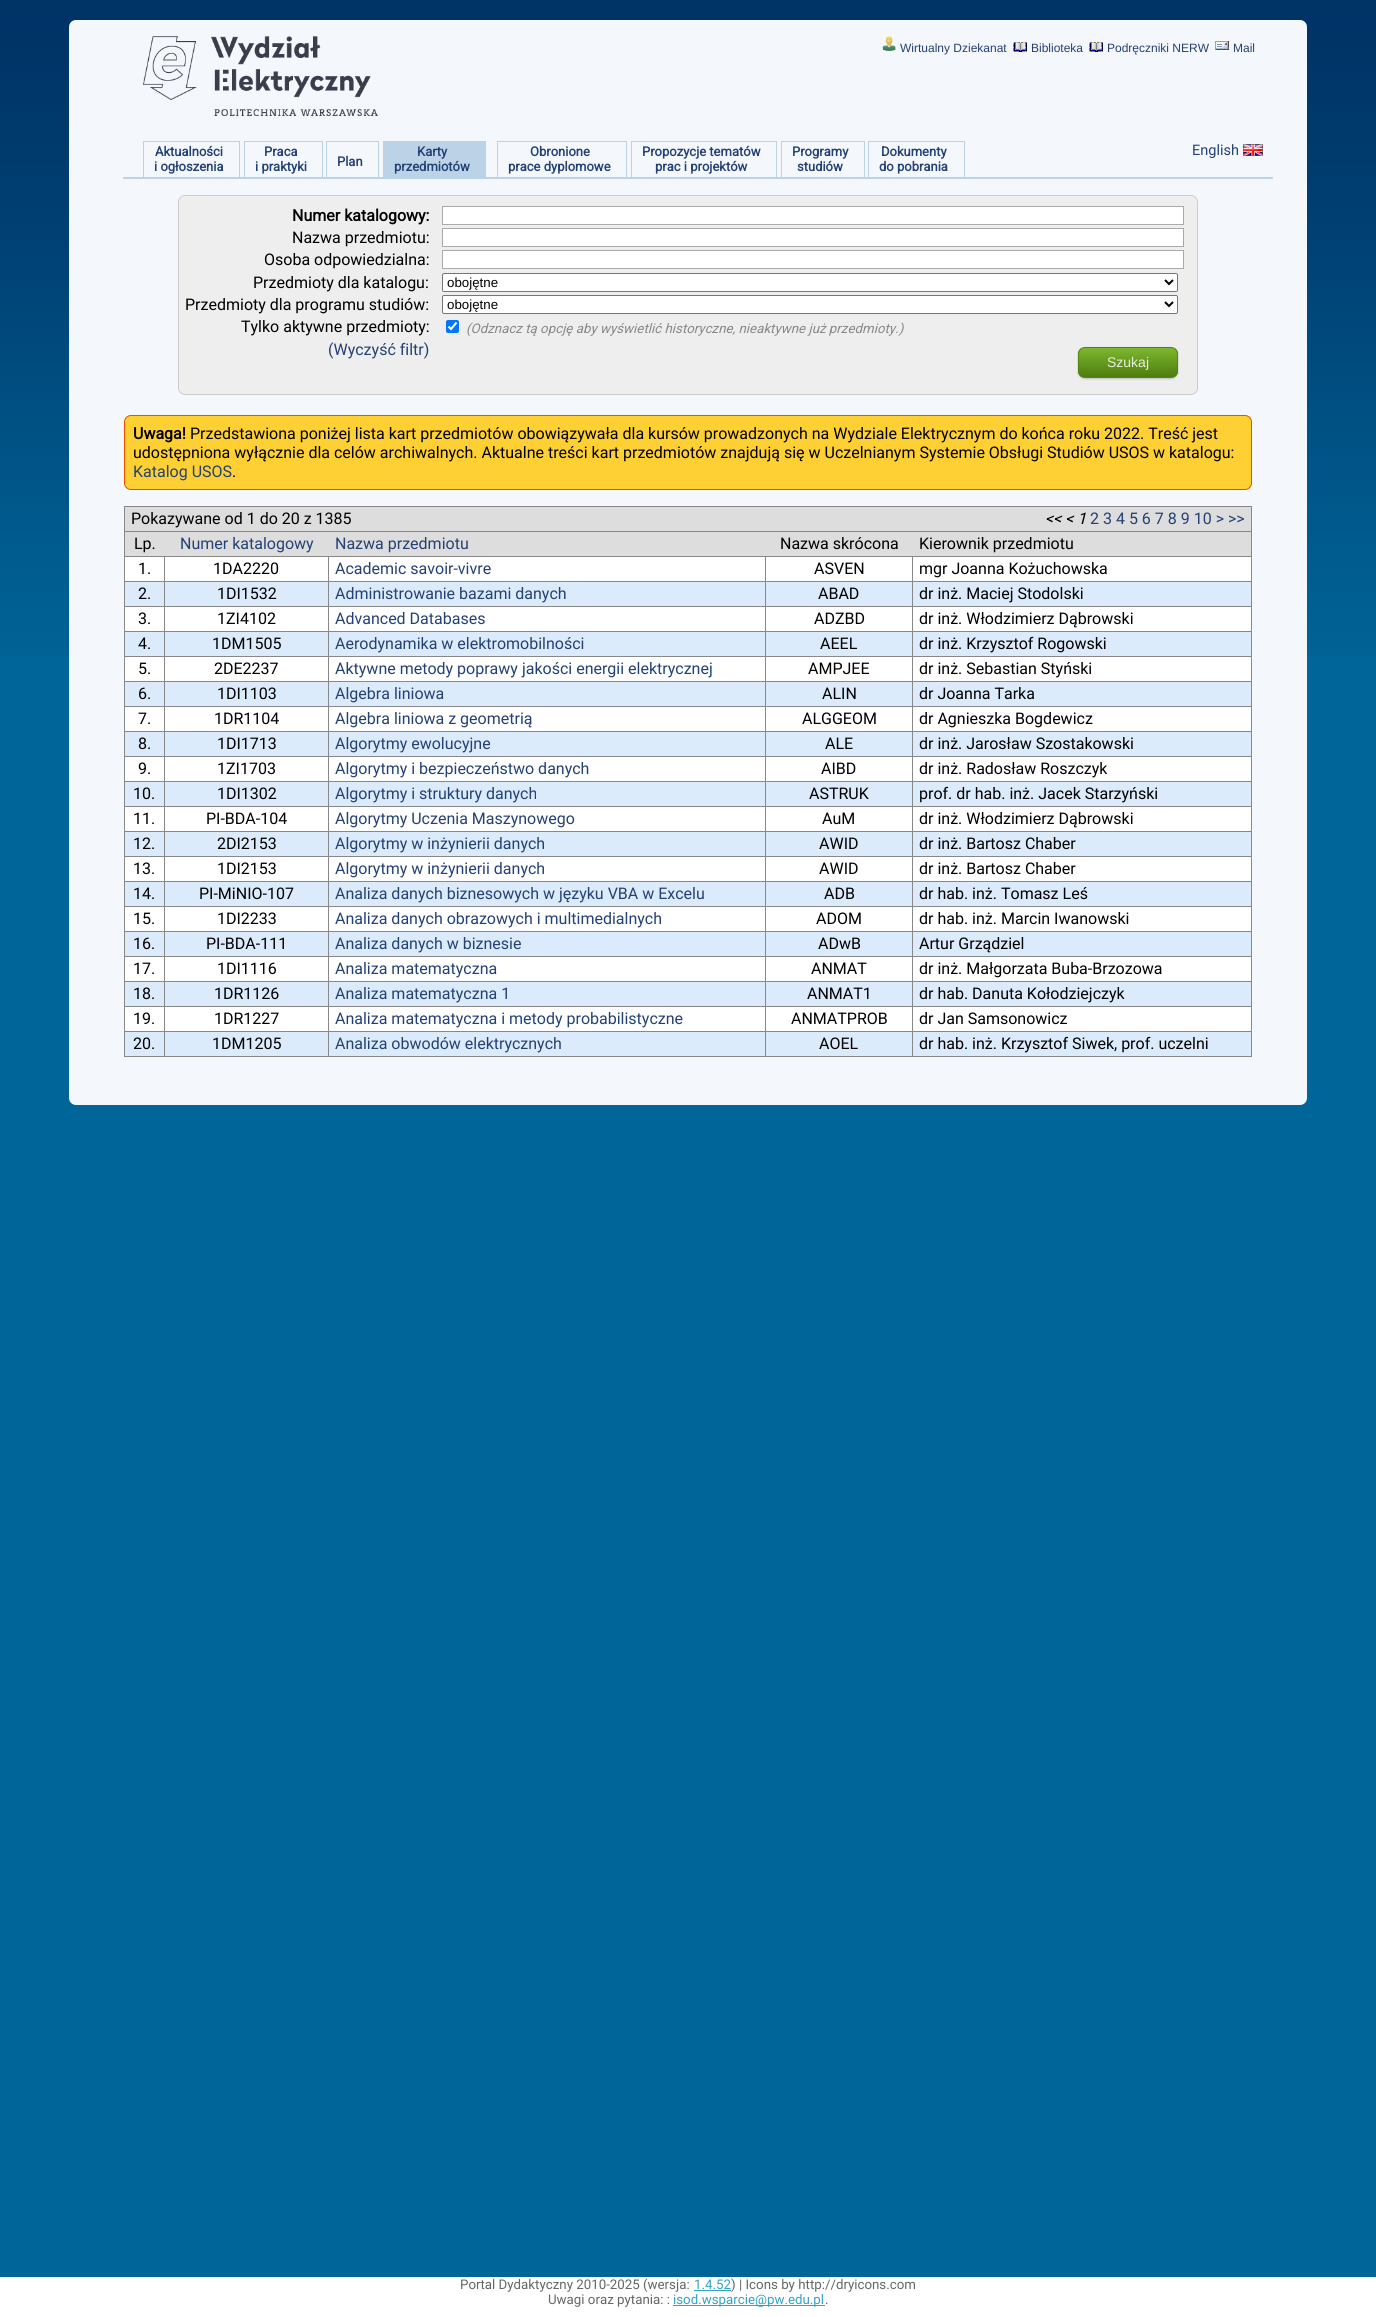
#include <cairo.h>
#include <math.h>
#include <stddef.h>

typedef struct { double x, y; const char *s; } line_t;
typedef struct { double x, y, w, h; unsigned color; } box_t;

static void ink(cairo_t *ctx, unsigned color) {
    cairo_set_source_rgb(ctx, (color >> 16) / 255.0, (color >> 8 & 255) / 255.0, (color & 255) / 255.0);
}

static void round_path(cairo_t *ctx, double x, double y, double w, double h, double r) {
    cairo_new_sub_path(ctx);
    cairo_arc(ctx, x + w - r, y + h - r, r, 0, M_PI / 2);
    cairo_arc(ctx, x + r, y + h - r, r, M_PI / 2, M_PI);
    cairo_arc(ctx, x + r, y + r, r, M_PI, 1.5 * M_PI);
    cairo_arc(ctx, x + w - r, y + r, r, 1.5 * M_PI, 2 * M_PI);
    cairo_close_path(ctx);
}

static void blur_box(cairo_t *ctx, double x, double y, double w, double h, double r, double blur, double alpha) {
    cairo_push_group_with_content(ctx, CAIRO_CONTENT_ALPHA);
    cairo_set_operator(ctx, CAIRO_OPERATOR_SOURCE);
    for (int i = 15; i >= -15 && fmin(w, h) + blur * i / 3 > 0; i -= 2) {
        double e = blur * i / 6;
        cairo_set_source_rgba(ctx, 0, 0, 0, alpha * erfc((i - 1) / 8.5) / 2);
        round_path(ctx, x - e, y - e, w + 2 * e, h + 2 * e, fmax(0, fmin(r + e + blur * .6, fmin(w, h) / 2 + e)));
        cairo_fill(ctx);
    }
    cairo_pattern_t *soft = cairo_pop_group(ctx);
    cairo_mask(ctx, soft);
    cairo_pattern_destroy(soft);
}

static void paste(cairo_t *ctx, const char *path, double x, double y, double w, double h) {
    cairo_surface_t *image = cairo_image_surface_create_from_png(path);
    cairo_save(ctx);
    cairo_set_source_surface(ctx, image, x, y);
    cairo_rectangle(ctx, x, y, w, h);
    cairo_fill(ctx);
    cairo_restore(ctx);
    cairo_surface_destroy(image);
}

int main(void) {
    cairo_surface_t *surface = cairo_image_surface_create(CAIRO_FORMAT_RGB24, 1376, 2317);
    cairo_t *ctx = cairo_create(surface);
    cairo_font_options_t *options = cairo_font_options_create();
    cairo_font_options_set_hint_metrics(options, CAIRO_HINT_METRICS_OFF);
    cairo_font_options_set_hint_style(options, CAIRO_HINT_STYLE_NONE);
    cairo_set_font_options(ctx, options);
    cairo_set_miter_limit(ctx, 4);
    cairo_pattern_t *gradient;
    ink(ctx, 0x006699);
    cairo_paint(ctx);
    paste(ctx, "media/1.png", 0, 0, 1376, 656);
    ink(ctx, 0xF4F7FB);
    round_path(ctx, 69, 20, 1238, 1085, 7);
    cairo_fill(ctx);
    paste(ctx, "media/2.png", 143, 36, 235, 80);
    paste(ctx, "media/3.png", 882, 36, 14, 16);
    cairo_select_font_face(ctx, "Liberation Sans", CAIRO_FONT_SLANT_NORMAL, CAIRO_FONT_WEIGHT_NORMAL);
    cairo_set_font_size(ctx, 12);
    ink(ctx, 0x234175);
    cairo_move_to(ctx, 900, 52);
    cairo_show_text(ctx, "Wirtualny Dziekanat");
    paste(ctx, "media/4.png", 1013, 42, 14, 10);
    cairo_move_to(ctx, 1031, 52);
    cairo_show_text(ctx, "Biblioteka");
    paste(ctx, "media/4.png", 1089, 42, 14, 10);
    cairo_move_to(ctx, 1107, 52);
    cairo_show_text(ctx, "Podręczniki NERW");
    paste(ctx, "media/5.png", 1215, 40, 14, 12);
    cairo_move_to(ctx, 1233, 52);
    cairo_show_text(ctx, "Mail");
    {
        static const box_t items[] = {
            {123, 177, 1150, 2, 0xBCD2E6},
            {143, 141, 97, 1, 0xBCD2E6},
            {239, 141, 1, 36, 0xBCD2E6},
            {143, 141, 1, 36, 0xBCD2E6},
        };
        for (size_t i = 0; i < sizeof items / sizeof *items; i++) {
            ink(ctx, items[i].color);
            cairo_rectangle(ctx, items[i].x, items[i].y, items[i].w, items[i].h);
            cairo_fill(ctx);
        }
    }
    cairo_select_font_face(ctx, "Roboto", CAIRO_FONT_SLANT_NORMAL, CAIRO_FONT_WEIGHT_BOLD);
    cairo_set_font_size(ctx, 13);
    ink(ctx, 0x234175);
    cairo_move_to(ctx, 155, 156);
    cairo_show_text(ctx, "Aktualności");
    cairo_move_to(ctx, 154, 171);
    cairo_show_text(ctx, "i ogłoszenia");
    {
        static const box_t items[] = {
            {244, 141, 79, 1, 0xBCD2E6},
            {322, 141, 1, 36, 0xBCD2E6},
            {244, 141, 1, 36, 0xBCD2E6},
        };
        for (size_t i = 0; i < sizeof items / sizeof *items; i++) {
            ink(ctx, items[i].color);
            cairo_rectangle(ctx, items[i].x, items[i].y, items[i].w, items[i].h);
            cairo_fill(ctx);
        }
    }
    ink(ctx, 0x234175);
    cairo_move_to(ctx, 264, 156);
    cairo_show_text(ctx, "Praca");
    cairo_move_to(ctx, 255, 171);
    cairo_show_text(ctx, "i praktyki");
    {
        static const box_t items[] = {
            {326, 141, 53, 1, 0xBCD2E6},
            {378, 141, 1, 36, 0xBCD2E6},
            {326, 141, 1, 36, 0xBCD2E6},
        };
        for (size_t i = 0; i < sizeof items / sizeof *items; i++) {
            ink(ctx, items[i].color);
            cairo_rectangle(ctx, items[i].x, items[i].y, items[i].w, items[i].h);
            cairo_fill(ctx);
        }
    }
    ink(ctx, 0x234175);
    cairo_move_to(ctx, 337, 166);
    cairo_show_text(ctx, "Plan");
    ink(ctx, 0xBCD2E6);
    cairo_rectangle(ctx, 383, 141, 103, 36);
    cairo_fill(ctx);
    ink(ctx, 0x234175);
    cairo_move_to(ctx, 417, 156);
    cairo_show_text(ctx, "Karty");
    cairo_move_to(ctx, 394, 171);
    cairo_show_text(ctx, "przedmiotów");
    {
        static const box_t items[] = {
            {497, 141, 130, 1, 0xBCD2E6},
            {626, 141, 1, 36, 0xBCD2E6},
            {497, 141, 1, 36, 0xBCD2E6},
        };
        for (size_t i = 0; i < sizeof items / sizeof *items; i++) {
            ink(ctx, items[i].color);
            cairo_rectangle(ctx, items[i].x, items[i].y, items[i].w, items[i].h);
            cairo_fill(ctx);
        }
    }
    ink(ctx, 0x234175);
    cairo_move_to(ctx, 530, 156);
    cairo_show_text(ctx, "Obronione");
    cairo_move_to(ctx, 508, 171);
    cairo_show_text(ctx, "prace dyplomowe");
    {
        static const box_t items[] = {
            {631, 141, 146, 1, 0xBCD2E6},
            {776, 141, 1, 36, 0xBCD2E6},
            {631, 141, 1, 36, 0xBCD2E6},
        };
        for (size_t i = 0; i < sizeof items / sizeof *items; i++) {
            ink(ctx, items[i].color);
            cairo_rectangle(ctx, items[i].x, items[i].y, items[i].w, items[i].h);
            cairo_fill(ctx);
        }
    }
    ink(ctx, 0x234175);
    cairo_move_to(ctx, 642, 156);
    cairo_show_text(ctx, "Propozycje tematów");
    cairo_move_to(ctx, 655, 171);
    cairo_show_text(ctx, "prac i projektów");
    {
        static const box_t items[] = {
            {781, 141, 84, 1, 0xBCD2E6},
            {864, 141, 1, 36, 0xBCD2E6},
            {781, 141, 1, 36, 0xBCD2E6},
        };
        for (size_t i = 0; i < sizeof items / sizeof *items; i++) {
            ink(ctx, items[i].color);
            cairo_rectangle(ctx, items[i].x, items[i].y, items[i].w, items[i].h);
            cairo_fill(ctx);
        }
    }
    ink(ctx, 0x234175);
    cairo_move_to(ctx, 792, 156);
    cairo_show_text(ctx, "Programy");
    cairo_move_to(ctx, 797, 171);
    cairo_show_text(ctx, "studiów");
    {
        static const box_t items[] = {
            {868, 141, 97, 1, 0xBCD2E6},
            {964, 141, 1, 36, 0xBCD2E6},
            {868, 141, 1, 36, 0xBCD2E6},
        };
        for (size_t i = 0; i < sizeof items / sizeof *items; i++) {
            ink(ctx, items[i].color);
            cairo_rectangle(ctx, items[i].x, items[i].y, items[i].w, items[i].h);
            cairo_fill(ctx);
        }
    }
    ink(ctx, 0x234175);
    cairo_move_to(ctx, 881, 156);
    cairo_show_text(ctx, "Dokumenty");
    cairo_move_to(ctx, 879, 171);
    cairo_show_text(ctx, "do pobrania");
    cairo_select_font_face(ctx, "Roboto", CAIRO_FONT_SLANT_NORMAL, CAIRO_FONT_WEIGHT_NORMAL);
    cairo_set_font_size(ctx, 14.5);
    cairo_move_to(ctx, 1192, 155);
    cairo_show_text(ctx, "English");
    paste(ctx, "media/6.png", 1243, 144, 20, 12);
    ink(ctx, 0xEEEEEE);
    round_path(ctx, 178.5, 195.5, 1019, 199, 6.5);
    cairo_fill_preserve(ctx);
    ink(ctx, 0xCCCCCC);
    cairo_set_line_width(ctx, 1);
    cairo_stroke(ctx);
    cairo_select_font_face(ctx, "Roboto", CAIRO_FONT_SLANT_NORMAL, CAIRO_FONT_WEIGHT_BOLD);
    cairo_set_font_size(ctx, 16);
    ink(ctx, 0x000000);
    cairo_move_to(ctx, 292, 221);
    cairo_show_text(ctx, "Numer katalogowy:");
    ink(ctx, 0xFFFFFF);
    cairo_rectangle(ctx, 442.5, 206.5, 741, 18);
    cairo_fill_preserve(ctx);
    ink(ctx, 0xAAAAAA);
    cairo_stroke(ctx);
    cairo_select_font_face(ctx, "Roboto", CAIRO_FONT_SLANT_NORMAL, CAIRO_FONT_WEIGHT_NORMAL);
    ink(ctx, 0x000000);
    cairo_move_to(ctx, 292, 243);
    cairo_show_text(ctx, "Nazwa przedmiotu:");
    ink(ctx, 0xFFFFFF);
    cairo_rectangle(ctx, 442.5, 228.5, 741, 18);
    cairo_fill_preserve(ctx);
    ink(ctx, 0xAAAAAA);
    cairo_stroke(ctx);
    ink(ctx, 0x000000);
    cairo_move_to(ctx, 264, 265);
    cairo_show_text(ctx, "Osoba odpowiedzialna:");
    ink(ctx, 0xFFFFFF);
    cairo_rectangle(ctx, 442.5, 250.5, 741, 18);
    cairo_fill_preserve(ctx);
    ink(ctx, 0xAAAAAA);
    cairo_stroke(ctx);
    ink(ctx, 0x000000);
    cairo_move_to(ctx, 253, 288);
    cairo_show_text(ctx, "Przedmioty dla katalogu:");
    ink(ctx, 0xFFFFFF);
    round_path(ctx, 442.5, 273.5, 735, 18, 1.5);
    cairo_fill_preserve(ctx);
    ink(ctx, 0x767676);
    cairo_stroke(ctx);
    cairo_new_path(ctx);
    cairo_move_to(ctx, 1165, 280);
    cairo_line_to(ctx, 1169, 284);
    cairo_line_to(ctx, 1173, 280);
    ink(ctx, 0x000000);
    cairo_set_line_width(ctx, 2);
    cairo_stroke(ctx);
    cairo_select_font_face(ctx, "Liberation Sans", CAIRO_FONT_SLANT_NORMAL, CAIRO_FONT_WEIGHT_NORMAL);
    cairo_set_font_size(ctx, 13.3);
    cairo_move_to(ctx, 447, 287);
    cairo_show_text(ctx, "obojętne");
    cairo_select_font_face(ctx, "Roboto", CAIRO_FONT_SLANT_NORMAL, CAIRO_FONT_WEIGHT_NORMAL);
    cairo_set_font_size(ctx, 16);
    cairo_move_to(ctx, 185, 310);
    cairo_show_text(ctx, "Przedmioty dla programu studiów:");
    ink(ctx, 0xFFFFFF);
    round_path(ctx, 442.5, 295.5, 735, 18, 1.5);
    cairo_fill_preserve(ctx);
    ink(ctx, 0x767676);
    cairo_set_line_width(ctx, 1);
    cairo_stroke(ctx);
    cairo_new_path(ctx);
    cairo_move_to(ctx, 1165, 302);
    cairo_line_to(ctx, 1169, 306);
    cairo_line_to(ctx, 1173, 302);
    ink(ctx, 0x000000);
    cairo_set_line_width(ctx, 2);
    cairo_stroke(ctx);
    cairo_select_font_face(ctx, "Liberation Sans", CAIRO_FONT_SLANT_NORMAL, CAIRO_FONT_WEIGHT_NORMAL);
    cairo_set_font_size(ctx, 13.3);
    cairo_move_to(ctx, 447, 309);
    cairo_show_text(ctx, "obojętne");
    cairo_select_font_face(ctx, "Roboto", CAIRO_FONT_SLANT_NORMAL, CAIRO_FONT_WEIGHT_NORMAL);
    cairo_set_font_size(ctx, 16);
    cairo_move_to(ctx, 241, 332);
    cairo_show_text(ctx, "Tylko aktywne przedmioty:");
    ink(ctx, 0x0075FF);
    round_path(ctx, 446, 320, 13, 13, 2);
    cairo_fill(ctx);
    cairo_new_path(ctx);
    cairo_move_to(ctx, 448.5, 326.5);
    cairo_line_to(ctx, 451, 329);
    cairo_line_to(ctx, 456.5, 322.5);
    ink(ctx, 0xFFFFFF);
    cairo_set_line_width(ctx, 2.1);
    cairo_stroke(ctx);
    cairo_select_font_face(ctx, "Roboto", CAIRO_FONT_SLANT_ITALIC, CAIRO_FONT_WEIGHT_NORMAL);
    cairo_set_font_size(ctx, 13.3);
    ink(ctx, 0x888888);
    cairo_move_to(ctx, 466, 333);
    cairo_show_text(ctx, "(Odznacz tą opcję aby wyświetlić historyczne, nieaktywne już przedmioty.)");
    cairo_select_font_face(ctx, "Roboto", CAIRO_FONT_SLANT_NORMAL, CAIRO_FONT_WEIGHT_NORMAL);
    cairo_set_font_size(ctx, 16);
    ink(ctx, 0x234175);
    cairo_move_to(ctx, 328, 355);
    cairo_show_text(ctx, "(Wyczyść filtr)");
    ink(ctx, 0x000000);
    blur_box(ctx, 1078, 348, 100, 31, 7, 1, 0.2);
    cairo_save(ctx);
    round_path(ctx, 1078, 347, 100, 31, 7);
    cairo_clip(ctx);
    gradient = cairo_pattern_create_linear(1079, 348, 1079, 377);
    cairo_pattern_add_color_stop_rgba(gradient, 0, 0.49, 0.718, 0.184, 1);
    cairo_pattern_add_color_stop_rgba(gradient, 1, 0.306, 0.49, 0.055, 1);
    cairo_set_source(ctx, gradient);
    cairo_pattern_destroy(gradient);
    cairo_rectangle(ctx, 1078, 348, 100, 29);
    cairo_fill(ctx);
    cairo_restore(ctx);
    round_path(ctx, 1078.5, 347.5, 99, 30, 6.5);
    ink(ctx, 0x538312);
    cairo_set_line_width(ctx, 1);
    cairo_stroke(ctx);
    cairo_select_font_face(ctx, "Liberation Sans", CAIRO_FONT_SLANT_NORMAL, CAIRO_FONT_WEIGHT_NORMAL);
    cairo_set_font_size(ctx, 14);
    ink(ctx, 0xE8F0DE);
    cairo_move_to(ctx, 1107, 367);
    cairo_show_text(ctx, "Szukaj");
    ink(ctx, 0xFFD033);
    round_path(ctx, 124.5, 415.5, 1127, 74, 6.5);
    cairo_fill_preserve(ctx);
    ink(ctx, 0xEE4E00);
    cairo_stroke(ctx);
    cairo_select_font_face(ctx, "Roboto", CAIRO_FONT_SLANT_NORMAL, CAIRO_FONT_WEIGHT_BOLD);
    cairo_set_font_size(ctx, 16);
    ink(ctx, 0x000000);
    cairo_move_to(ctx, 133, 439);
    cairo_show_text(ctx, "Uwaga!");
    cairo_select_font_face(ctx, "Roboto", CAIRO_FONT_SLANT_NORMAL, CAIRO_FONT_WEIGHT_NORMAL);
    cairo_move_to(ctx, 190, 439);
    cairo_show_text(ctx, "Przedstawiona poniżej lista kart przedmiotów obowiązywała dla kursów prowadzonych na Wydziale Elektrycznym do końca roku 2022. Treść jest");
    cairo_move_to(ctx, 133, 458);
    cairo_show_text(ctx, "udostępniona wyłącznie dla celów archiwalnych. Aktualne treści kart przedmiotów znajdują się w Uczelnianym Systemie Obsługi Studiów USOS w katalogu:");
    ink(ctx, 0x234175);
    cairo_move_to(ctx, 133, 477);
    cairo_show_text(ctx, "Katalog USOS");
    ink(ctx, 0x000000);
    cairo_move_to(ctx, 232, 477);
    cairo_show_text(ctx, ".");
    {
        static const box_t items[] = {
            {125, 507, 1126, 24, 0xDDDDDD},
            {124, 506, 1128, 1, 0x888888},
            {124, 531, 1128, 1, 0x888888},
            {1251, 531, 1, 26, 0x888888},
            {1251, 506, 1, 26, 0x888888},
            {124, 556, 1128, 1, 0x888888},
            {124, 531, 1, 26, 0x888888},
            {124, 506, 1, 26, 0x888888},
        };
        for (size_t i = 0; i < sizeof items / sizeof *items; i++) {
            ink(ctx, items[i].color);
            cairo_rectangle(ctx, items[i].x, items[i].y, items[i].w, items[i].h);
            cairo_fill(ctx);
        }
    }
    ink(ctx, 0x000000);
    cairo_move_to(ctx, 131, 524);
    cairo_show_text(ctx, "Pokazywane od 1 do 20 z 1385");
    cairo_select_font_face(ctx, "Roboto", CAIRO_FONT_SLANT_ITALIC, CAIRO_FONT_WEIGHT_NORMAL);
    cairo_move_to(ctx, 1045, 524);
    cairo_show_text(ctx, "<< < 1");
    cairo_select_font_face(ctx, "Roboto", CAIRO_FONT_SLANT_NORMAL, CAIRO_FONT_WEIGHT_NORMAL);
    ink(ctx, 0x234175);
    cairo_move_to(ctx, 1090, 524);
    cairo_show_text(ctx, "2 3 4 5 6 7 8 9 10 > >>");
    ink(ctx, 0xDDDDDD);
    cairo_rectangle(ctx, 125, 532, 1126, 24);
    cairo_fill(ctx);
    ink(ctx, 0x000000);
    cairo_move_to(ctx, 134, 549);
    cairo_show_text(ctx, "Lp.");
    ink(ctx, 0x234175);
    cairo_move_to(ctx, 180, 549);
    cairo_show_text(ctx, "Numer katalogowy");
    cairo_move_to(ctx, 335, 549);
    cairo_show_text(ctx, "Nazwa przedmiotu");
    ink(ctx, 0x000000);
    cairo_move_to(ctx, 780, 549);
    cairo_show_text(ctx, "Nazwa skrócona");
    cairo_move_to(ctx, 919, 549);
    cairo_show_text(ctx, "Kierownik przedmiotu");
    ink(ctx, 0xFFFFFF);
    cairo_rectangle(ctx, 125, 557, 1126, 474);
    cairo_fill(ctx);
    ink(ctx, 0x000000);
    cairo_move_to(ctx, 138, 574);
    cairo_show_text(ctx, "1.");
    {
        static const box_t items[] = {
            {912, 581, 340, 1, 0x888888},
            {125, 582, 1126, 24, 0xDBEBFB},
            {912, 606, 340, 1, 0x888888},
            {912, 631, 340, 1, 0x888888},
            {125, 632, 1126, 24, 0xDBEBFB},
            {912, 656, 340, 1, 0x888888},
            {912, 681, 340, 1, 0x888888},
            {125, 682, 1126, 24, 0xDBEBFB},
            {912, 706, 340, 1, 0x888888},
            {912, 731, 340, 1, 0x888888},
            {125, 732, 1126, 24, 0xDBEBFB},
            {912, 756, 340, 1, 0x888888},
            {912, 781, 340, 1, 0x888888},
            {125, 782, 1126, 24, 0xDBEBFB},
            {912, 806, 340, 1, 0x888888},
            {912, 831, 340, 1, 0x888888},
            {125, 832, 1126, 24, 0xDBEBFB},
            {912, 856, 340, 1, 0x888888},
            {912, 881, 340, 1, 0x888888},
            {125, 882, 1126, 24, 0xDBEBFB},
            {912, 906, 340, 1, 0x888888},
            {912, 931, 340, 1, 0x888888},
            {125, 932, 1126, 24, 0xDBEBFB},
            {912, 956, 340, 1, 0x888888},
            {912, 981, 340, 1, 0x888888},
            {125, 982, 1126, 24, 0xDBEBFB},
            {912, 1006, 340, 1, 0x888888},
            {912, 1031, 340, 1, 0x888888},
            {125, 1032, 1126, 24, 0xDBEBFB},
            {1251, 1031, 1, 26, 0x888888},
            {912, 1056, 340, 1, 0x888888},
            {912, 1031, 1, 26, 0x888888},
            {765, 1031, 148, 1, 0x888888},
            {912, 1006, 1, 26, 0x888888},
            {765, 1006, 148, 1, 0x888888},
            {912, 981, 1, 26, 0x888888},
            {765, 981, 148, 1, 0x888888},
            {912, 956, 1, 26, 0x888888},
            {765, 956, 148, 1, 0x888888},
            {912, 931, 1, 26, 0x888888},
            {765, 931, 148, 1, 0x888888},
            {912, 906, 1, 26, 0x888888},
            {765, 906, 148, 1, 0x888888},
            {912, 881, 1, 26, 0x888888},
            {765, 881, 148, 1, 0x888888},
            {912, 856, 1, 26, 0x888888},
            {765, 856, 148, 1, 0x888888},
            {912, 831, 1, 26, 0x888888},
            {765, 831, 148, 1, 0x888888},
            {912, 806, 1, 26, 0x888888},
            {765, 806, 148, 1, 0x888888},
            {912, 781, 1, 26, 0x888888},
            {765, 781, 148, 1, 0x888888},
            {912, 756, 1, 26, 0x888888},
            {765, 756, 148, 1, 0x888888},
            {912, 731, 1, 26, 0x888888},
            {765, 731, 148, 1, 0x888888},
            {912, 706, 1, 26, 0x888888},
            {765, 706, 148, 1, 0x888888},
            {912, 681, 1, 26, 0x888888},
            {765, 681, 148, 1, 0x888888},
            {912, 656, 1, 26, 0x888888},
            {765, 656, 148, 1, 0x888888},
            {912, 631, 1, 26, 0x888888},
            {765, 631, 148, 1, 0x888888},
            {912, 606, 1, 26, 0x888888},
            {765, 606, 148, 1, 0x888888},
            {912, 581, 1, 26, 0x888888},
            {765, 581, 148, 1, 0x888888},
            {765, 1056, 148, 1, 0x888888},
            {765, 1031, 1, 26, 0x888888},
            {328, 1031, 438, 1, 0x888888},
            {765, 1006, 1, 26, 0x888888},
            {328, 1006, 438, 1, 0x888888},
            {765, 981, 1, 26, 0x888888},
            {328, 981, 438, 1, 0x888888},
            {765, 956, 1, 26, 0x888888},
            {328, 956, 438, 1, 0x888888},
            {765, 931, 1, 26, 0x888888},
            {328, 931, 438, 1, 0x888888},
            {765, 906, 1, 26, 0x888888},
            {328, 906, 438, 1, 0x888888},
            {765, 881, 1, 26, 0x888888},
            {328, 881, 438, 1, 0x888888},
            {765, 856, 1, 26, 0x888888},
            {328, 856, 438, 1, 0x888888},
            {765, 831, 1, 26, 0x888888},
            {328, 831, 438, 1, 0x888888},
            {765, 806, 1, 26, 0x888888},
            {328, 806, 438, 1, 0x888888},
            {765, 781, 1, 26, 0x888888},
            {328, 781, 438, 1, 0x888888},
            {765, 756, 1, 26, 0x888888},
            {328, 756, 438, 1, 0x888888},
            {765, 731, 1, 26, 0x888888},
            {328, 731, 438, 1, 0x888888},
            {765, 706, 1, 26, 0x888888},
            {328, 706, 438, 1, 0x888888},
            {765, 681, 1, 26, 0x888888},
            {328, 681, 438, 1, 0x888888},
            {765, 656, 1, 26, 0x888888},
            {328, 656, 438, 1, 0x888888},
            {765, 631, 1, 26, 0x888888},
            {328, 631, 438, 1, 0x888888},
            {765, 606, 1, 26, 0x888888},
            {328, 606, 438, 1, 0x888888},
            {765, 581, 1, 26, 0x888888},
            {328, 581, 438, 1, 0x888888},
            {328, 1056, 438, 1, 0x888888},
            {328, 1031, 1, 26, 0x888888},
            {164, 1031, 165, 1, 0x888888},
            {328, 1006, 1, 26, 0x888888},
            {164, 1006, 165, 1, 0x888888},
            {328, 981, 1, 26, 0x888888},
            {164, 981, 165, 1, 0x888888},
            {328, 956, 1, 26, 0x888888},
            {164, 956, 165, 1, 0x888888},
            {328, 931, 1, 26, 0x888888},
            {164, 931, 165, 1, 0x888888},
            {328, 906, 1, 26, 0x888888},
            {164, 906, 165, 1, 0x888888},
            {328, 881, 1, 26, 0x888888},
            {164, 881, 165, 1, 0x888888},
            {328, 856, 1, 26, 0x888888},
            {164, 856, 165, 1, 0x888888},
            {328, 831, 1, 26, 0x888888},
            {164, 831, 165, 1, 0x888888},
            {328, 806, 1, 26, 0x888888},
            {164, 806, 165, 1, 0x888888},
            {328, 781, 1, 26, 0x888888},
            {164, 781, 165, 1, 0x888888},
            {328, 756, 1, 26, 0x888888},
            {164, 756, 165, 1, 0x888888},
            {328, 731, 1, 26, 0x888888},
            {164, 731, 165, 1, 0x888888},
            {328, 706, 1, 26, 0x888888},
            {164, 706, 165, 1, 0x888888},
            {328, 681, 1, 26, 0x888888},
            {164, 681, 165, 1, 0x888888},
            {328, 656, 1, 26, 0x888888},
            {164, 656, 165, 1, 0x888888},
            {328, 631, 1, 26, 0x888888},
            {164, 631, 165, 1, 0x888888},
            {328, 606, 1, 26, 0x888888},
            {164, 606, 165, 1, 0x888888},
            {328, 581, 1, 26, 0x888888},
            {164, 581, 165, 1, 0x888888},
            {164, 1056, 165, 1, 0x888888},
            {164, 1031, 1, 26, 0x888888},
            {124, 1031, 41, 1, 0x888888},
            {164, 1006, 1, 26, 0x888888},
            {124, 1006, 41, 1, 0x888888},
            {164, 981, 1, 26, 0x888888},
            {124, 981, 41, 1, 0x888888},
            {164, 956, 1, 26, 0x888888},
            {124, 956, 41, 1, 0x888888},
            {164, 931, 1, 26, 0x888888},
            {124, 931, 41, 1, 0x888888},
            {164, 906, 1, 26, 0x888888},
            {124, 906, 41, 1, 0x888888},
            {164, 881, 1, 26, 0x888888},
            {124, 881, 41, 1, 0x888888},
            {164, 856, 1, 26, 0x888888},
            {124, 856, 41, 1, 0x888888},
            {164, 831, 1, 26, 0x888888},
            {124, 831, 41, 1, 0x888888},
            {164, 806, 1, 26, 0x888888},
            {124, 806, 41, 1, 0x888888},
            {164, 781, 1, 26, 0x888888},
            {124, 781, 41, 1, 0x888888},
            {164, 756, 1, 26, 0x888888},
            {124, 756, 41, 1, 0x888888},
            {164, 731, 1, 26, 0x888888},
            {124, 731, 41, 1, 0x888888},
            {164, 706, 1, 26, 0x888888},
            {124, 706, 41, 1, 0x888888},
            {164, 681, 1, 26, 0x888888},
            {124, 681, 41, 1, 0x888888},
            {164, 656, 1, 26, 0x888888},
            {124, 656, 41, 1, 0x888888},
            {164, 631, 1, 26, 0x888888},
            {124, 631, 41, 1, 0x888888},
            {164, 606, 1, 26, 0x888888},
            {124, 606, 41, 1, 0x888888},
            {164, 581, 1, 26, 0x888888},
            {124, 581, 41, 1, 0x888888},
            {164, 556, 1, 26, 0x888888},
        };
        for (size_t i = 0; i < sizeof items / sizeof *items; i++) {
            ink(ctx, items[i].color);
            cairo_rectangle(ctx, items[i].x, items[i].y, items[i].w, items[i].h);
            cairo_fill(ctx);
        }
    }
    ink(ctx, 0x000000);
    cairo_move_to(ctx, 213, 574);
    cairo_show_text(ctx, "1DA2220");
    ink(ctx, 0x888888);
    cairo_rectangle(ctx, 328, 556, 1, 26);
    cairo_fill(ctx);
    ink(ctx, 0x234175);
    cairo_move_to(ctx, 335, 574);
    cairo_show_text(ctx, "Academic savoir-vivre");
    ink(ctx, 0x888888);
    cairo_rectangle(ctx, 765, 556, 1, 26);
    cairo_fill(ctx);
    ink(ctx, 0x000000);
    cairo_move_to(ctx, 814, 574);
    cairo_show_text(ctx, "ASVEN");
    ink(ctx, 0x888888);
    cairo_rectangle(ctx, 912, 556, 1, 26);
    cairo_fill(ctx);
    ink(ctx, 0x000000);
    cairo_move_to(ctx, 919, 574);
    cairo_show_text(ctx, "mgr Joanna Kożuchowska");
    {
        static const box_t items[] = {
            {124, 1056, 41, 1, 0x888888},
            {124, 1031, 1, 26, 0x888888},
            {124, 1006, 1, 26, 0x888888},
            {124, 981, 1, 26, 0x888888},
            {124, 956, 1, 26, 0x888888},
            {124, 931, 1, 26, 0x888888},
            {124, 906, 1, 26, 0x888888},
            {124, 881, 1, 26, 0x888888},
            {124, 856, 1, 26, 0x888888},
            {124, 831, 1, 26, 0x888888},
            {124, 806, 1, 26, 0x888888},
            {124, 781, 1, 26, 0x888888},
            {124, 756, 1, 26, 0x888888},
            {124, 731, 1, 26, 0x888888},
            {124, 706, 1, 26, 0x888888},
            {124, 681, 1, 26, 0x888888},
            {124, 656, 1, 26, 0x888888},
            {124, 631, 1, 26, 0x888888},
            {124, 606, 1, 26, 0x888888},
            {124, 556, 1, 51, 0x888888},
        };
        for (size_t i = 0; i < sizeof items / sizeof *items; i++) {
            ink(ctx, items[i].color);
            cairo_rectangle(ctx, items[i].x, items[i].y, items[i].w, items[i].h);
            cairo_fill(ctx);
        }
    }
    ink(ctx, 0x000000);
    cairo_move_to(ctx, 138, 599);
    cairo_show_text(ctx, "2.");
    cairo_move_to(ctx, 217, 599);
    cairo_show_text(ctx, "1DI1532");
    ink(ctx, 0x234175);
    cairo_move_to(ctx, 335, 599);
    cairo_show_text(ctx, "Administrowanie bazami danych");
    ink(ctx, 0x000000);
    cairo_move_to(ctx, 818, 599);
    cairo_show_text(ctx, "ABAD");
    {
        static const box_t items[] = {
            {1251, 1006, 1, 26, 0x888888},
            {1251, 981, 1, 26, 0x888888},
            {1251, 956, 1, 26, 0x888888},
            {1251, 931, 1, 26, 0x888888},
            {1251, 906, 1, 26, 0x888888},
            {1251, 881, 1, 26, 0x888888},
            {1251, 856, 1, 26, 0x888888},
            {1251, 831, 1, 26, 0x888888},
            {1251, 806, 1, 26, 0x888888},
            {1251, 781, 1, 26, 0x888888},
            {1251, 756, 1, 26, 0x888888},
            {1251, 731, 1, 26, 0x888888},
            {1251, 706, 1, 26, 0x888888},
            {1251, 681, 1, 26, 0x888888},
            {1251, 656, 1, 26, 0x888888},
            {1251, 631, 1, 26, 0x888888},
            {1251, 606, 1, 26, 0x888888},
            {1251, 556, 1, 51, 0x888888},
        };
        for (size_t i = 0; i < sizeof items / sizeof *items; i++) {
            ink(ctx, items[i].color);
            cairo_rectangle(ctx, items[i].x, items[i].y, items[i].w, items[i].h);
            cairo_fill(ctx);
        }
    }
    ink(ctx, 0x000000);
    {
        static const line_t items[] = {
            {919, 599, "dr inż. Maciej Stodolski"},
            {138, 624, "3."},
            {217, 624, "1ZI4102"},
        };
        for (size_t i = 0; i < sizeof items / sizeof *items; i++) {
            cairo_move_to(ctx, items[i].x, items[i].y);
            cairo_show_text(ctx, items[i].s);
        }
    }
    ink(ctx, 0x234175);
    cairo_move_to(ctx, 335, 624);
    cairo_show_text(ctx, "Advanced Databases");
    ink(ctx, 0x000000);
    {
        static const line_t items[] = {
            {814, 624, "ADZBD"},
            {919, 624, "dr inż. Włodzimierz Dąbrowski"},
            {138, 649, "4."},
            {212, 649, "1DM1505"},
        };
        for (size_t i = 0; i < sizeof items / sizeof *items; i++) {
            cairo_move_to(ctx, items[i].x, items[i].y);
            cairo_show_text(ctx, items[i].s);
        }
    }
    ink(ctx, 0x234175);
    cairo_move_to(ctx, 335, 649);
    cairo_show_text(ctx, "Aerodynamika w elektromobilności");
    ink(ctx, 0x000000);
    {
        static const line_t items[] = {
            {820, 649, "AEEL"},
            {919, 649, "dr inż. Krzysztof Rogowski"},
            {138, 674, "5."},
            {214, 674, "2DE2237"},
        };
        for (size_t i = 0; i < sizeof items / sizeof *items; i++) {
            cairo_move_to(ctx, items[i].x, items[i].y);
            cairo_show_text(ctx, items[i].s);
        }
    }
    ink(ctx, 0x234175);
    cairo_move_to(ctx, 335, 674);
    cairo_show_text(ctx, "Aktywne metody poprawy jakości energii elektrycznej");
    ink(ctx, 0x000000);
    {
        static const line_t items[] = {
            {808, 674, "AMPJEE"},
            {919, 674, "dr inż. Sebastian Styński"},
            {138, 699, "6."},
            {217, 699, "1DI1103"},
        };
        for (size_t i = 0; i < sizeof items / sizeof *items; i++) {
            cairo_move_to(ctx, items[i].x, items[i].y);
            cairo_show_text(ctx, items[i].s);
        }
    }
    ink(ctx, 0x234175);
    cairo_move_to(ctx, 335, 699);
    cairo_show_text(ctx, "Algebra liniowa");
    ink(ctx, 0x000000);
    {
        static const line_t items[] = {
            {822, 699, "ALIN"},
            {919, 699, "dr Joanna Tarka"},
            {138, 724, "7."},
            {214, 724, "1DR1104"},
        };
        for (size_t i = 0; i < sizeof items / sizeof *items; i++) {
            cairo_move_to(ctx, items[i].x, items[i].y);
            cairo_show_text(ctx, items[i].s);
        }
    }
    ink(ctx, 0x234175);
    cairo_move_to(ctx, 335, 724);
    cairo_show_text(ctx, "Algebra liniowa z geometrią");
    ink(ctx, 0x000000);
    {
        static const line_t items[] = {
            {802, 724, "ALGGEOM"},
            {919, 724, "dr Agnieszka Bogdewicz"},
            {138, 749, "8."},
            {217, 749, "1DI1713"},
        };
        for (size_t i = 0; i < sizeof items / sizeof *items; i++) {
            cairo_move_to(ctx, items[i].x, items[i].y);
            cairo_show_text(ctx, items[i].s);
        }
    }
    ink(ctx, 0x234175);
    cairo_move_to(ctx, 335, 749);
    cairo_show_text(ctx, "Algorytmy ewolucyjne");
    ink(ctx, 0x000000);
    {
        static const line_t items[] = {
            {825, 749, "ALE"},
            {919, 749, "dr inż. Jarosław Szostakowski"},
            {138, 774, "9."},
            {217, 774, "1ZI1703"},
        };
        for (size_t i = 0; i < sizeof items / sizeof *items; i++) {
            cairo_move_to(ctx, items[i].x, items[i].y);
            cairo_show_text(ctx, items[i].s);
        }
    }
    ink(ctx, 0x234175);
    cairo_move_to(ctx, 335, 774);
    cairo_show_text(ctx, "Algorytmy i bezpieczeństwo danych");
    ink(ctx, 0x000000);
    {
        static const line_t items[] = {
            {821, 774, "AIBD"},
            {919, 774, "dr inż. Radosław Roszczyk"},
            {133, 799, "10."},
            {217, 799, "1DI1302"},
        };
        for (size_t i = 0; i < sizeof items / sizeof *items; i++) {
            cairo_move_to(ctx, items[i].x, items[i].y);
            cairo_show_text(ctx, items[i].s);
        }
    }
    ink(ctx, 0x234175);
    cairo_move_to(ctx, 335, 799);
    cairo_show_text(ctx, "Algorytmy i struktury danych");
    ink(ctx, 0x000000);
    {
        static const line_t items[] = {
            {809, 799, "ASTRUK"},
            {919, 799, "prof. dr hab. inż. Jacek Starzyński"},
            {133, 824, "11."},
            {206, 824, "PI-BDA-104"},
        };
        for (size_t i = 0; i < sizeof items / sizeof *items; i++) {
            cairo_move_to(ctx, items[i].x, items[i].y);
            cairo_show_text(ctx, items[i].s);
        }
    }
    ink(ctx, 0x234175);
    cairo_move_to(ctx, 335, 824);
    cairo_show_text(ctx, "Algorytmy Uczenia Maszynowego");
    ink(ctx, 0x000000);
    {
        static const line_t items[] = {
            {822, 824, "AuM"},
            {919, 824, "dr inż. Włodzimierz Dąbrowski"},
            {133, 849, "12."},
            {217, 849, "2DI2153"},
        };
        for (size_t i = 0; i < sizeof items / sizeof *items; i++) {
            cairo_move_to(ctx, items[i].x, items[i].y);
            cairo_show_text(ctx, items[i].s);
        }
    }
    ink(ctx, 0x234175);
    cairo_move_to(ctx, 335, 849);
    cairo_show_text(ctx, "Algorytmy w inżynierii danych");
    ink(ctx, 0x000000);
    {
        static const line_t items[] = {
            {819, 849, "AWID"},
            {919, 849, "dr inż. Bartosz Chaber"},
            {133, 874, "13."},
            {217, 874, "1DI2153"},
        };
        for (size_t i = 0; i < sizeof items / sizeof *items; i++) {
            cairo_move_to(ctx, items[i].x, items[i].y);
            cairo_show_text(ctx, items[i].s);
        }
    }
    ink(ctx, 0x234175);
    cairo_move_to(ctx, 335, 874);
    cairo_show_text(ctx, "Algorytmy w inżynierii danych");
    ink(ctx, 0x000000);
    {
        static const line_t items[] = {
            {819, 874, "AWID"},
            {919, 874, "dr inż. Bartosz Chaber"},
            {133, 899, "14."},
            {199, 899, "PI-MiNIO-107"},
        };
        for (size_t i = 0; i < sizeof items / sizeof *items; i++) {
            cairo_move_to(ctx, items[i].x, items[i].y);
            cairo_show_text(ctx, items[i].s);
        }
    }
    ink(ctx, 0x234175);
    cairo_move_to(ctx, 335, 899);
    cairo_show_text(ctx, "Analiza danych biznesowych w języku VBA w Excelu");
    ink(ctx, 0x000000);
    {
        static const line_t items[] = {
            {824, 899, "ADB"},
            {919, 899, "dr hab. inż. Tomasz Leś"},
            {133, 924, "15."},
            {217, 924, "1DI2233"},
        };
        for (size_t i = 0; i < sizeof items / sizeof *items; i++) {
            cairo_move_to(ctx, items[i].x, items[i].y);
            cairo_show_text(ctx, items[i].s);
        }
    }
    ink(ctx, 0x234175);
    cairo_move_to(ctx, 335, 924);
    cairo_show_text(ctx, "Analiza danych obrazowych i multimedialnych");
    ink(ctx, 0x000000);
    {
        static const line_t items[] = {
            {816, 924, "ADOM"},
            {919, 924, "dr hab. inż. Marcin Iwanowski"},
            {133, 949, "16."},
            {206, 949, "PI-BDA-111"},
        };
        for (size_t i = 0; i < sizeof items / sizeof *items; i++) {
            cairo_move_to(ctx, items[i].x, items[i].y);
            cairo_show_text(ctx, items[i].s);
        }
    }
    ink(ctx, 0x234175);
    cairo_move_to(ctx, 335, 949);
    cairo_show_text(ctx, "Analiza danych w biznesie");
    ink(ctx, 0x000000);
    {
        static const line_t items[] = {
            {818, 949, "ADwB"},
            {919, 949, "Artur Grządziel"},
            {133, 974, "17."},
            {217, 974, "1DI1116"},
        };
        for (size_t i = 0; i < sizeof items / sizeof *items; i++) {
            cairo_move_to(ctx, items[i].x, items[i].y);
            cairo_show_text(ctx, items[i].s);
        }
    }
    ink(ctx, 0x234175);
    cairo_move_to(ctx, 335, 974);
    cairo_show_text(ctx, "Analiza matematyczna");
    ink(ctx, 0x000000);
    {
        static const line_t items[] = {
            {811, 974, "ANMAT"},
            {919, 974, "dr inż. Małgorzata Buba-Brzozowa"},
            {133, 999, "18."},
            {214, 999, "1DR1126"},
        };
        for (size_t i = 0; i < sizeof items / sizeof *items; i++) {
            cairo_move_to(ctx, items[i].x, items[i].y);
            cairo_show_text(ctx, items[i].s);
        }
    }
    ink(ctx, 0x234175);
    cairo_move_to(ctx, 335, 999);
    cairo_show_text(ctx, "Analiza matematyczna 1");
    ink(ctx, 0x000000);
    {
        static const line_t items[] = {
            {807, 999, "ANMAT1"},
            {919, 999, "dr hab. Danuta Kołodziejczyk"},
            {133, 1024, "19."},
            {214, 1024, "1DR1227"},
        };
        for (size_t i = 0; i < sizeof items / sizeof *items; i++) {
            cairo_move_to(ctx, items[i].x, items[i].y);
            cairo_show_text(ctx, items[i].s);
        }
    }
    ink(ctx, 0x234175);
    cairo_move_to(ctx, 335, 1024);
    cairo_show_text(ctx, "Analiza matematyczna i metody probabilistyczne");
    ink(ctx, 0x000000);
    {
        static const line_t items[] = {
            {791, 1024, "ANMATPROB"},
            {919, 1024, "dr Jan Samsonowicz"},
            {133, 1049, "20."},
            {212, 1049, "1DM1205"},
        };
        for (size_t i = 0; i < sizeof items / sizeof *items; i++) {
            cairo_move_to(ctx, items[i].x, items[i].y);
            cairo_show_text(ctx, items[i].s);
        }
    }
    ink(ctx, 0x234175);
    cairo_move_to(ctx, 335, 1049);
    cairo_show_text(ctx, "Analiza obwodów elektrycznych");
    ink(ctx, 0x000000);
    cairo_move_to(ctx, 819, 1049);
    cairo_show_text(ctx, "AOEL");
    cairo_move_to(ctx, 919, 1049);
    cairo_show_text(ctx, "dr hab. inż. Krzysztof Siwek, prof. uczelni");
    ink(ctx, 0xFFFFFF);
    cairo_rectangle(ctx, 0, 2277, 1376, 40);
    cairo_fill(ctx);
    cairo_set_font_size(ctx, 13.3);
    ink(ctx, 0x666666);
    cairo_move_to(ctx, 460, 2289);
    cairo_show_text(ctx, "Portal Dydaktyczny 2010-2025 (wersja:");
    ink(ctx, 0x33A3C3);
    cairo_move_to(ctx, 694, 2289);
    cairo_show_text(ctx, "1.4.52");
    cairo_rectangle(ctx, 694, 2290, 37, 1);
    cairo_fill(ctx);
    ink(ctx, 0x666666);
    cairo_move_to(ctx, 731, 2289);
    cairo_show_text(ctx, ") | Icons by http://dryicons.com");
    cairo_move_to(ctx, 548, 2304);
    cairo_show_text(ctx, "Uwagi oraz pytania: :");
    ink(ctx, 0x33A3C3);
    cairo_rectangle(ctx, 673, 2305, 152, 1);
    cairo_fill(ctx);
    cairo_move_to(ctx, 673, 2304);
    cairo_show_text(ctx, "isod.wsparcie@pw.edu.pl");
    ink(ctx, 0x666666);
    cairo_move_to(ctx, 825, 2304);
    cairo_show_text(ctx, ".");
    cairo_surface_write_to_png(surface, "image.png");
    cairo_font_options_destroy(options);
    cairo_destroy(ctx);
    cairo_surface_destroy(surface);
    return 0;
}
